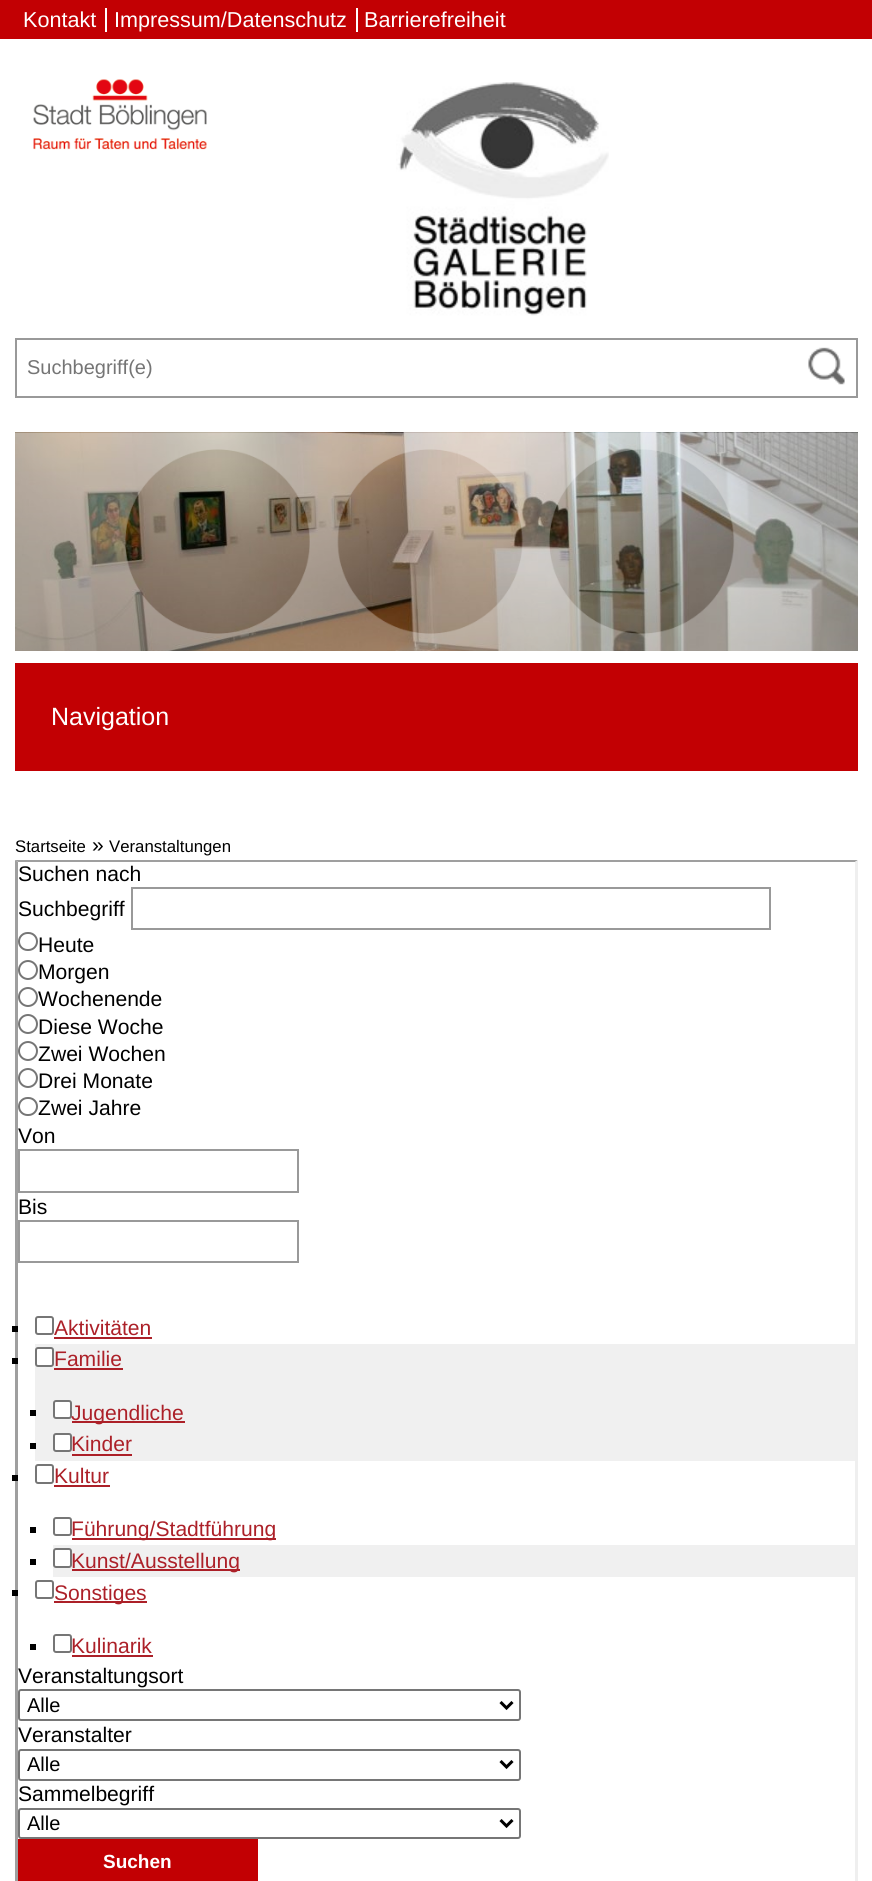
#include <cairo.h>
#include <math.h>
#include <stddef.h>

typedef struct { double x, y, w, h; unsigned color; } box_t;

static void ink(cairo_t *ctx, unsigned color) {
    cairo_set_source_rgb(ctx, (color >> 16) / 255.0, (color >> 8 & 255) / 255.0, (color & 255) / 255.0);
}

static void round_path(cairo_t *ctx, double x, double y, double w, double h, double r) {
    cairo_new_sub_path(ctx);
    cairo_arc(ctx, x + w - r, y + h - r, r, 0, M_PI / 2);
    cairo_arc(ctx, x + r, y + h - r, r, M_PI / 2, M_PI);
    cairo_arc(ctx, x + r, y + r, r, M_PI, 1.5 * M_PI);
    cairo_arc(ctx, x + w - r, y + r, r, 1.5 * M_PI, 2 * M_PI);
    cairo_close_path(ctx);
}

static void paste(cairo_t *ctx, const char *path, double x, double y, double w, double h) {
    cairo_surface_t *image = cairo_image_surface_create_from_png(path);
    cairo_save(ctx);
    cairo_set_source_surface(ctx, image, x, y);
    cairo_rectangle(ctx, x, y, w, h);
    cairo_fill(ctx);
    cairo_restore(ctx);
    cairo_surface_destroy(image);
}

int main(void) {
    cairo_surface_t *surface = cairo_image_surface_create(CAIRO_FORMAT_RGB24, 872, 1881);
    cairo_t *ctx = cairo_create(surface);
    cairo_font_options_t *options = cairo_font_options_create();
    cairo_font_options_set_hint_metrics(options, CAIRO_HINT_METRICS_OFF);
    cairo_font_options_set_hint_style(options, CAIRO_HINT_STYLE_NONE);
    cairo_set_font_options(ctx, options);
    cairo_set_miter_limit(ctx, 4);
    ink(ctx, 0xFFFFFF);
    cairo_paint(ctx);
    ink(ctx, 0xC20003);
    cairo_rectangle(ctx, 0, 0, 872, 39);
    cairo_fill(ctx);
    cairo_select_font_face(ctx, "Liberation Sans", CAIRO_FONT_SLANT_NORMAL, CAIRO_FONT_WEIGHT_NORMAL);
    cairo_set_font_size(ctx, 21.6);
    ink(ctx, 0xFFFFFF);
    cairo_move_to(ctx, 23, 27);
    cairo_show_text(ctx, "Kontakt");
    cairo_rectangle(ctx, 105, 8, 2, 24);
    cairo_fill(ctx);
    cairo_move_to(ctx, 114, 27);
    cairo_show_text(ctx, "Impressum/Datenschutz");
    cairo_rectangle(ctx, 356, 8, 2, 24);
    cairo_fill(ctx);
    cairo_move_to(ctx, 364, 27);
    cairo_show_text(ctx, "Barrierefreiheit");
    paste(ctx, "media/1.png", 33, 79, 174, 71);
    paste(ctx, "media/2.png", 396, 82, 213, 234);
    cairo_rectangle(ctx, 16, 339, 841, 58);
    ink(ctx, 0x999999);
    cairo_stroke(ctx);
    cairo_set_font_size(ctx, 20);
    ink(ctx, 0x757575);
    cairo_move_to(ctx, 27, 374);
    cairo_show_text(ctx, "Suchbegriff(e)");
    paste(ctx, "media/3.png", 808, 347, 37, 38);
    paste(ctx, "media/4.png", 15, 432, 843, 219);
    paste(ctx, "media/5.png", 15, 433, 843, 218);
    ink(ctx, 0xC20003);
    cairo_rectangle(ctx, 15, 663, 843, 108);
    cairo_fill(ctx);
    cairo_set_font_size(ctx, 25);
    ink(ctx, 0xFFFFFF);
    cairo_move_to(ctx, 51, 725);
    cairo_show_text(ctx, "Navigation");
    cairo_set_font_size(ctx, 16.75);
    ink(ctx, 0x000000);
    cairo_move_to(ctx, 15, 852);
    cairo_show_text(ctx, "Startseite");
    cairo_set_font_size(ctx, 21);
    cairo_move_to(ctx, 92, 852);
    cairo_show_text(ctx, "»");
    cairo_set_font_size(ctx, 16.75);
    cairo_move_to(ctx, 109, 852);
    cairo_show_text(ctx, "Veranstaltungen");
    ink(ctx, 0x9F9F9F);
    cairo_new_path(ctx);
    cairo_move_to(ctx, 15, 860);
    cairo_line_to(ctx, 858, 860);
    cairo_line_to(ctx, 855, 862);
    cairo_line_to(ctx, 18, 862);
    cairo_close_path(ctx);
    cairo_fill(ctx);
    ink(ctx, 0xEFEFEF);
    cairo_new_path(ctx);
    cairo_move_to(ctx, 858, 860);
    cairo_line_to(ctx, 858, 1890);
    cairo_line_to(ctx, 855, 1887);
    cairo_line_to(ctx, 855, 862);
    cairo_close_path(ctx);
    cairo_fill(ctx);
    ink(ctx, 0x9F9F9F);
    cairo_new_path(ctx);
    cairo_move_to(ctx, 15, 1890);
    cairo_line_to(ctx, 15, 860);
    cairo_line_to(ctx, 18, 862);
    cairo_line_to(ctx, 18, 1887);
    cairo_close_path(ctx);
    cairo_fill(ctx);
    cairo_set_font_size(ctx, 21.1);
    ink(ctx, 0x000000);
    cairo_move_to(ctx, 18, 881);
    cairo_show_text(ctx, "Suchen nach");
    cairo_move_to(ctx, 18, 916);
    cairo_show_text(ctx, "Suchbegriff");
    cairo_rectangle(ctx, 132, 888, 638, 41);
    ink(ctx, 0x999999);
    cairo_stroke(ctx);
    round_path(ctx, 19, 933, 18, 17, 8.5);
    ink(ctx, 0x767676);
    cairo_stroke(ctx);
    ink(ctx, 0x000000);
    cairo_move_to(ctx, 38, 952);
    cairo_show_text(ctx, "Heute");
    cairo_new_path(ctx);
    cairo_arc(ctx, 28, 970, 9, 0, 2 * M_PI);
    ink(ctx, 0x767676);
    cairo_stroke(ctx);
    ink(ctx, 0x000000);
    cairo_move_to(ctx, 38, 979);
    cairo_show_text(ctx, "Morgen");
    cairo_new_path(ctx);
    cairo_arc(ctx, 28, 997, 9, 0, 2 * M_PI);
    ink(ctx, 0x767676);
    cairo_stroke(ctx);
    ink(ctx, 0x000000);
    cairo_move_to(ctx, 38, 1006);
    cairo_show_text(ctx, "Wochenende");
    cairo_new_path(ctx);
    cairo_arc(ctx, 28, 1024, 9, 0, 2 * M_PI);
    ink(ctx, 0x767676);
    cairo_stroke(ctx);
    ink(ctx, 0x000000);
    cairo_move_to(ctx, 38, 1034);
    cairo_show_text(ctx, "Diese Woche");
    cairo_new_path(ctx);
    cairo_arc(ctx, 28, 1051, 9, 0, 2 * M_PI);
    ink(ctx, 0x767676);
    cairo_stroke(ctx);
    ink(ctx, 0x000000);
    cairo_move_to(ctx, 38, 1061);
    cairo_show_text(ctx, "Zwei Wochen");
    cairo_new_path(ctx);
    cairo_arc(ctx, 28, 1078, 9, 0, 2 * M_PI);
    ink(ctx, 0x767676);
    cairo_stroke(ctx);
    ink(ctx, 0x000000);
    cairo_move_to(ctx, 38, 1088);
    cairo_show_text(ctx, "Drei Monate");
    round_path(ctx, 19, 1098, 18, 17, 8.5);
    ink(ctx, 0x767676);
    cairo_stroke(ctx);
    ink(ctx, 0x000000);
    cairo_move_to(ctx, 38, 1115);
    cairo_show_text(ctx, "Zwei Jahre");
    cairo_move_to(ctx, 18, 1143);
    cairo_show_text(ctx, "Von");
    cairo_rectangle(ctx, 19, 1150, 279, 42);
    ink(ctx, 0x999999);
    cairo_stroke(ctx);
    ink(ctx, 0x000000);
    cairo_move_to(ctx, 18, 1214);
    cairo_show_text(ctx, "Bis");
    cairo_rectangle(ctx, 19, 1221, 279, 41);
    ink(ctx, 0x999999);
    cairo_stroke(ctx);
    ink(ctx, 0x000000);
    cairo_rectangle(ctx, 12, 1326, 6, 6);
    cairo_fill(ctx);
    round_path(ctx, 36, 1317, 17, 17, 2);
    ink(ctx, 0x767676);
    cairo_stroke(ctx);
    ink(ctx, 0xAC2028);
    cairo_move_to(ctx, 54, 1335);
    cairo_show_text(ctx, "Aktivitäten");
    {
        static const box_t items[] = {
            {54, 1337, 98, 2, 0xAC2028},
            {35, 1344, 820, 117, 0xF0F0F0},
            {12, 1358, 6, 6, 0x000000},
        };
        for (size_t i = 0; i < sizeof items / sizeof *items; i++) {
            ink(ctx, items[i].color);
            cairo_rectangle(ctx, items[i].x, items[i].y, items[i].w, items[i].h);
            cairo_fill(ctx);
        }
    }
    ink(ctx, 0xFFFFFF);
    round_path(ctx, 36, 1348, 17, 18, 2);
    cairo_fill_preserve(ctx);
    ink(ctx, 0x767676);
    cairo_stroke(ctx);
    ink(ctx, 0xAC2028);
    cairo_move_to(ctx, 54, 1366);
    cairo_show_text(ctx, "Familie");
    cairo_rectangle(ctx, 54, 1368, 69, 2);
    cairo_fill(ctx);
    ink(ctx, 0x000000);
    cairo_rectangle(ctx, 30, 1410, 6, 6);
    cairo_fill(ctx);
    ink(ctx, 0xFFFFFF);
    round_path(ctx, 54, 1401, 17, 17, 2);
    cairo_fill_preserve(ctx);
    ink(ctx, 0x767676);
    cairo_stroke(ctx);
    ink(ctx, 0xAC2028);
    cairo_rectangle(ctx, 72, 1421, 113, 2);
    cairo_fill(ctx);
    cairo_move_to(ctx, 71, 1420);
    cairo_show_text(ctx, "Jugendliche");
    ink(ctx, 0x000000);
    cairo_rectangle(ctx, 30, 1443, 6, 6);
    cairo_fill(ctx);
    ink(ctx, 0xFFFFFF);
    round_path(ctx, 54, 1434, 17, 17, 2);
    cairo_fill_preserve(ctx);
    ink(ctx, 0x767676);
    cairo_stroke(ctx);
    ink(ctx, 0xAC2028);
    cairo_move_to(ctx, 71, 1451);
    cairo_show_text(ctx, "Kinder");
    cairo_rectangle(ctx, 72, 1454, 60, 2);
    cairo_fill(ctx);
    ink(ctx, 0x000000);
    cairo_rectangle(ctx, 12, 1475, 6, 6);
    cairo_fill(ctx);
    round_path(ctx, 36, 1465, 17, 18, 2);
    ink(ctx, 0x767676);
    cairo_stroke(ctx);
    ink(ctx, 0xAC2028);
    cairo_move_to(ctx, 54, 1483);
    cairo_show_text(ctx, "Kultur");
    cairo_rectangle(ctx, 54, 1485, 56, 2);
    cairo_fill(ctx);
    ink(ctx, 0x000000);
    cairo_rectangle(ctx, 30, 1527, 6, 6);
    cairo_fill(ctx);
    round_path(ctx, 54, 1518, 17, 17, 2);
    ink(ctx, 0x767676);
    cairo_stroke(ctx);
    ink(ctx, 0xAC2028);
    cairo_rectangle(ctx, 72, 1538, 204, 2);
    cairo_fill(ctx);
    cairo_move_to(ctx, 71, 1536);
    cairo_show_text(ctx, "Führung/Stadtführung");
    ink(ctx, 0xF0F0F0);
    cairo_rectangle(ctx, 53, 1545, 802, 32);
    cairo_fill(ctx);
    ink(ctx, 0x000000);
    cairo_rectangle(ctx, 30, 1559, 6, 6);
    cairo_fill(ctx);
    ink(ctx, 0xFFFFFF);
    round_path(ctx, 54, 1549, 17, 18, 2);
    cairo_fill_preserve(ctx);
    ink(ctx, 0x767676);
    cairo_stroke(ctx);
    ink(ctx, 0xAC2028);
    cairo_rectangle(ctx, 72, 1569, 168, 2);
    cairo_fill(ctx);
    cairo_move_to(ctx, 71, 1568);
    cairo_show_text(ctx, "Kunst/Ausstellung");
    ink(ctx, 0x000000);
    cairo_rectangle(ctx, 12, 1590, 6, 6);
    cairo_fill(ctx);
    round_path(ctx, 36, 1581, 17, 17, 2);
    ink(ctx, 0x767676);
    cairo_stroke(ctx);
    ink(ctx, 0xAC2028);
    cairo_rectangle(ctx, 54, 1601, 93, 2);
    cairo_fill(ctx);
    cairo_move_to(ctx, 54, 1600);
    cairo_show_text(ctx, "Sonstiges");
    ink(ctx, 0x000000);
    cairo_rectangle(ctx, 30, 1644, 6, 6);
    cairo_fill(ctx);
    round_path(ctx, 54, 1635, 17, 17, 2);
    ink(ctx, 0x767676);
    cairo_stroke(ctx);
    ink(ctx, 0xAC2028);
    cairo_move_to(ctx, 71, 1653);
    cairo_show_text(ctx, "Kulinarik");
    cairo_rectangle(ctx, 72, 1655, 81, 2);
    cairo_fill(ctx);
    ink(ctx, 0x000000);
    cairo_move_to(ctx, 18, 1683);
    cairo_show_text(ctx, "Veranstaltungsort");
    round_path(ctx, 19, 1690, 501, 30, 2);
    ink(ctx, 0x767676);
    cairo_stroke(ctx);
    cairo_new_path(ctx);
    cairo_move_to(ctx, 500.5, 1702);
    cairo_line_to(ctx, 506.5, 1708);
    cairo_line_to(ctx, 512.5, 1702);
    ink(ctx, 0x000000);
    cairo_set_line_width(ctx, 3);
    cairo_stroke(ctx);
    cairo_set_font_size(ctx, 20);
    cairo_move_to(ctx, 27, 1712);
    cairo_show_text(ctx, "Alle");
    cairo_set_font_size(ctx, 21.1);
    cairo_move_to(ctx, 18, 1742);
    cairo_show_text(ctx, "Veranstalter");
    round_path(ctx, 19, 1750, 501, 30, 2);
    ink(ctx, 0x767676);
    cairo_set_line_width(ctx, 2);
    cairo_stroke(ctx);
    cairo_new_path(ctx);
    cairo_move_to(ctx, 500.5, 1761);
    cairo_line_to(ctx, 506.5, 1767);
    cairo_line_to(ctx, 512.5, 1761);
    ink(ctx, 0x000000);
    cairo_set_line_width(ctx, 3);
    cairo_stroke(ctx);
    cairo_set_font_size(ctx, 20);
    cairo_move_to(ctx, 27, 1771);
    cairo_show_text(ctx, "Alle");
    cairo_set_font_size(ctx, 21.1);
    cairo_move_to(ctx, 18, 1801);
    cairo_show_text(ctx, "Sammelbegriff");
    round_path(ctx, 19, 1809, 501, 29, 2);
    ink(ctx, 0x767676);
    cairo_set_line_width(ctx, 2);
    cairo_stroke(ctx);
    cairo_new_path(ctx);
    cairo_move_to(ctx, 500.5, 1820);
    cairo_line_to(ctx, 506.5, 1826);
    cairo_line_to(ctx, 512.5, 1820);
    ink(ctx, 0x000000);
    cairo_set_line_width(ctx, 3);
    cairo_stroke(ctx);
    cairo_set_font_size(ctx, 20);
    cairo_move_to(ctx, 27, 1830);
    cairo_show_text(ctx, "Alle");
    ink(ctx, 0xC20003);
    cairo_rectangle(ctx, 18, 1839, 240, 42);
    cairo_fill(ctx);
    cairo_select_font_face(ctx, "Liberation Sans", CAIRO_FONT_SLANT_NORMAL, CAIRO_FONT_WEIGHT_BOLD);
    cairo_set_font_size(ctx, 19);
    ink(ctx, 0xFFFFFF);
    cairo_move_to(ctx, 103, 1868);
    cairo_show_text(ctx, "Suchen");
    cairo_surface_write_to_png(surface, "image.png");
    cairo_font_options_destroy(options);
    cairo_destroy(ctx);
    cairo_surface_destroy(surface);
    return 0;
}
